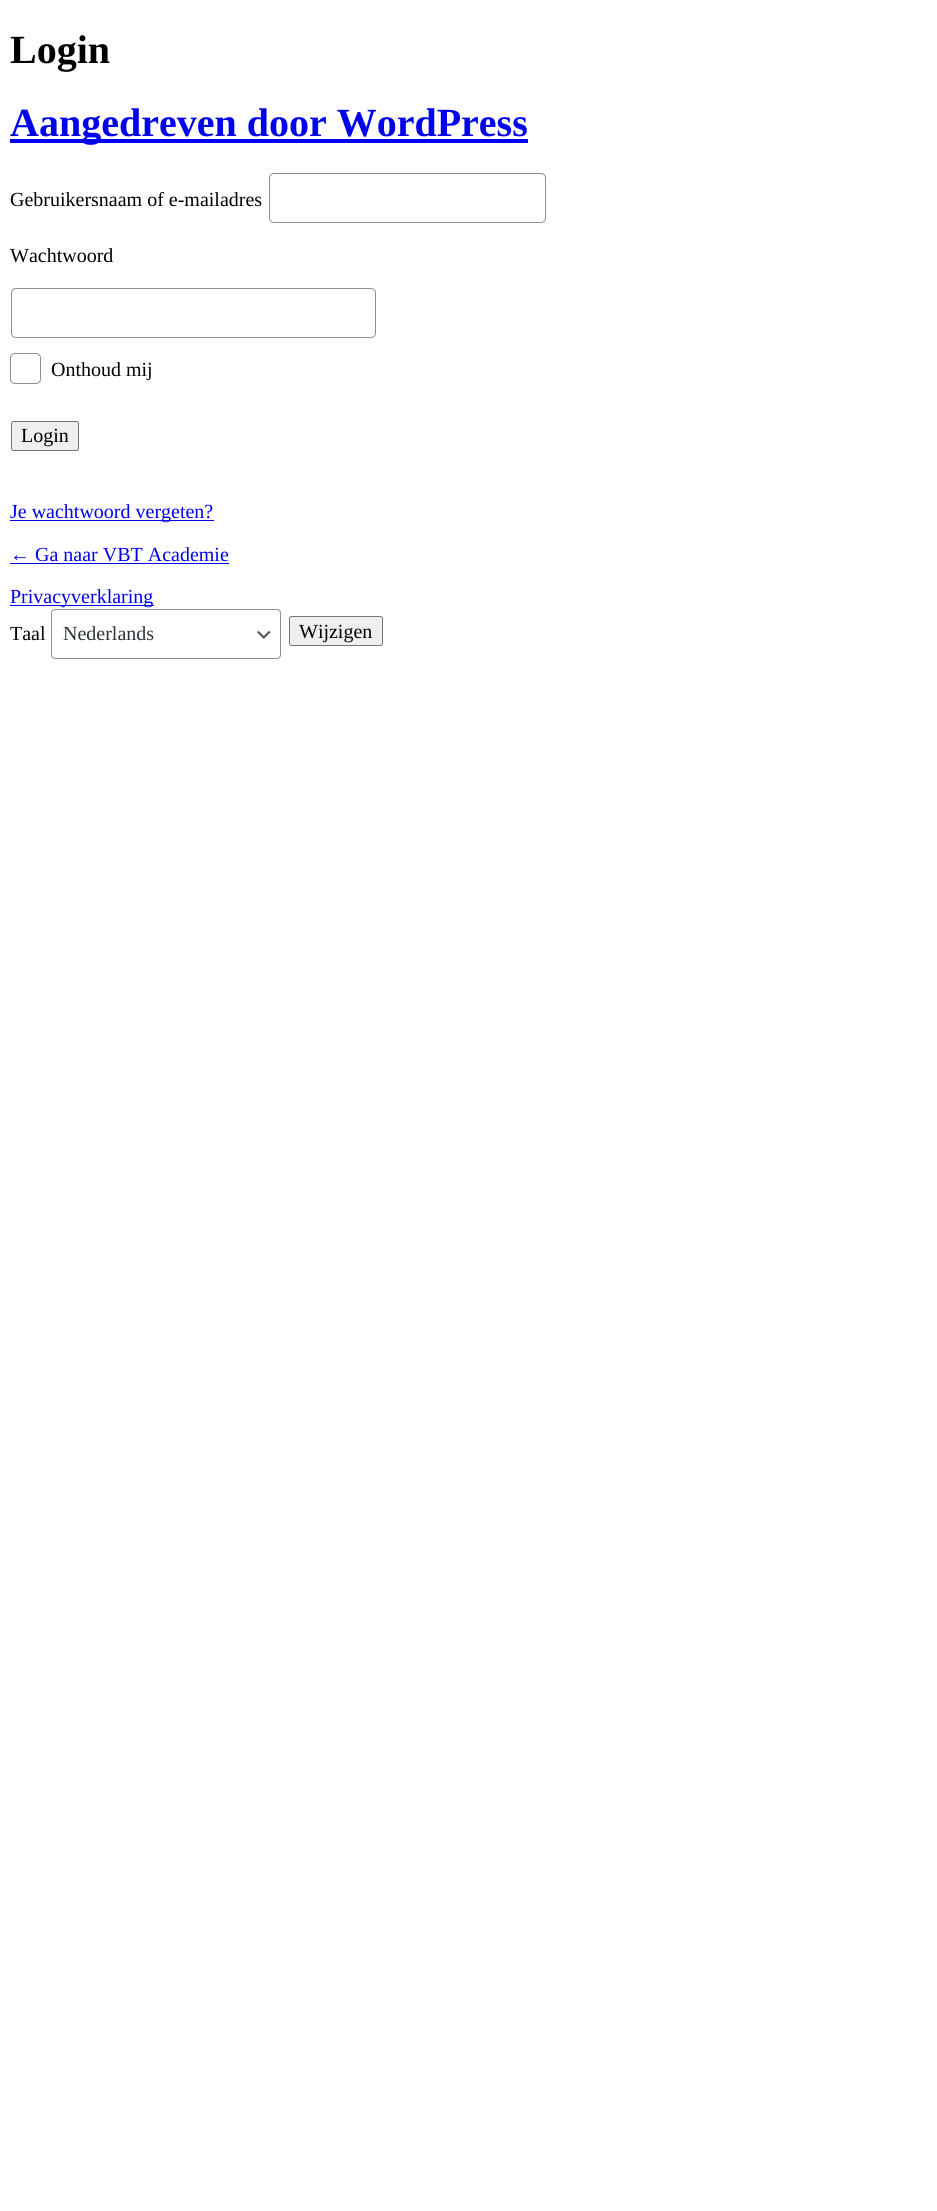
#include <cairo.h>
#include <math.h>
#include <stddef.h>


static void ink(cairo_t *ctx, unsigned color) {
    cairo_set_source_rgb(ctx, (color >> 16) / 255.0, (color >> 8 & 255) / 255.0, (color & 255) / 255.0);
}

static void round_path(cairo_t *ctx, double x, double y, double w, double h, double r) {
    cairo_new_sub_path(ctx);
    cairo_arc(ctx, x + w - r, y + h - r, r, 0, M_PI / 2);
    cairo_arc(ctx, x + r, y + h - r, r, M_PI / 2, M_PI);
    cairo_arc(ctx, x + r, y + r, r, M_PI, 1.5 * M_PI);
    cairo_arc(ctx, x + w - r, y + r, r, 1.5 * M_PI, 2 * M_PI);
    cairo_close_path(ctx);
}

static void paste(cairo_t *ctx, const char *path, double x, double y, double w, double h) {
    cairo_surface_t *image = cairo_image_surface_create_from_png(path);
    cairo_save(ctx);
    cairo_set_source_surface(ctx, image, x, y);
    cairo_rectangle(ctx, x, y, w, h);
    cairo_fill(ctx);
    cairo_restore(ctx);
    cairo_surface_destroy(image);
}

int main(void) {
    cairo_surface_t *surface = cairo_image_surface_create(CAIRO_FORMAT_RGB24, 937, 2211);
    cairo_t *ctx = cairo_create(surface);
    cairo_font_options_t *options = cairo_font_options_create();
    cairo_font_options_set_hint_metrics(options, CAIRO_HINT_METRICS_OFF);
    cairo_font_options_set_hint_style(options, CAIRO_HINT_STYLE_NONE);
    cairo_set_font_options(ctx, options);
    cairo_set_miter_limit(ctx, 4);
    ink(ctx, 0xFFFFFF);
    cairo_paint(ctx);
    cairo_select_font_face(ctx, "Liberation Serif", CAIRO_FONT_SLANT_NORMAL, CAIRO_FONT_WEIGHT_BOLD);
    cairo_set_font_size(ctx, 40);
    ink(ctx, 0x000000);
    cairo_move_to(ctx, 10, 63);
    cairo_show_text(ctx, "Login");
    ink(ctx, 0x0000EE);
    cairo_rectangle(ctx, 10, 139, 518, 4);
    cairo_fill(ctx);
    cairo_move_to(ctx, 10, 136);
    cairo_show_text(ctx, "Aangedreven door WordPress");
    cairo_select_font_face(ctx, "Liberation Serif", CAIRO_FONT_SLANT_NORMAL, CAIRO_FONT_WEIGHT_NORMAL);
    cairo_set_font_size(ctx, 20);
    ink(ctx, 0x000000);
    cairo_move_to(ctx, 10, 206);
    cairo_show_text(ctx, "Gebruikersnaam of e-mailadres");
    round_path(ctx, 269.5, 173.5, 276, 49, 4.5);
    ink(ctx, 0x8C8F94);
    cairo_set_line_width(ctx, 1);
    cairo_stroke(ctx);
    ink(ctx, 0x000000);
    cairo_move_to(ctx, 10, 262);
    cairo_show_text(ctx, "Wachtwoord");
    round_path(ctx, 11.5, 288.5, 364, 49, 4.5);
    ink(ctx, 0x8C8F94);
    cairo_stroke(ctx);
    round_path(ctx, 10.5, 353.5, 30, 30, 4.5);
    cairo_stroke(ctx);
    ink(ctx, 0x000000);
    cairo_move_to(ctx, 51, 376);
    cairo_show_text(ctx, "Onthoud mij");
    ink(ctx, 0xEFEFEF);
    round_path(ctx, 11.5, 421.5, 67, 29, 2);
    cairo_fill_preserve(ctx);
    ink(ctx, 0x767676);
    cairo_stroke(ctx);
    ink(ctx, 0x000000);
    cairo_move_to(ctx, 21, 442);
    cairo_show_text(ctx, "Login");
    ink(ctx, 0x0000EE);
    cairo_rectangle(ctx, 10, 520, 204, 1);
    cairo_fill(ctx);
    cairo_move_to(ctx, 10, 518);
    cairo_show_text(ctx, "Je wachtwoord vergeten?");
    cairo_move_to(ctx, 10, 561);
    cairo_show_text(ctx, "← Ga naar VBT Academie");
    cairo_rectangle(ctx, 10, 563, 219, 1);
    cairo_fill(ctx);
    cairo_rectangle(ctx, 10, 605, 144, 1);
    cairo_fill(ctx);
    cairo_move_to(ctx, 10, 603);
    cairo_show_text(ctx, "Privacyverklaring");
    ink(ctx, 0x000000);
    cairo_move_to(ctx, 10, 640);
    cairo_show_text(ctx, "Taal");
    paste(ctx, "media/1.png", 257, 631, 14, 8);
    round_path(ctx, 51.5, 609.5, 229, 49, 3.5);
    ink(ctx, 0x8C8F94);
    cairo_stroke(ctx);
    ink(ctx, 0x2C3338);
    cairo_move_to(ctx, 63, 640);
    cairo_show_text(ctx, "Nederlands");
    ink(ctx, 0xEFEFEF);
    round_path(ctx, 289.5, 616.5, 93, 29, 2);
    cairo_fill_preserve(ctx);
    ink(ctx, 0x767676);
    cairo_stroke(ctx);
    ink(ctx, 0x000000);
    cairo_move_to(ctx, 299, 638);
    cairo_show_text(ctx, "Wijzigen");
    cairo_surface_write_to_png(surface, "image.png");
    cairo_font_options_destroy(options);
    cairo_destroy(ctx);
    cairo_surface_destroy(surface);
    return 0;
}
